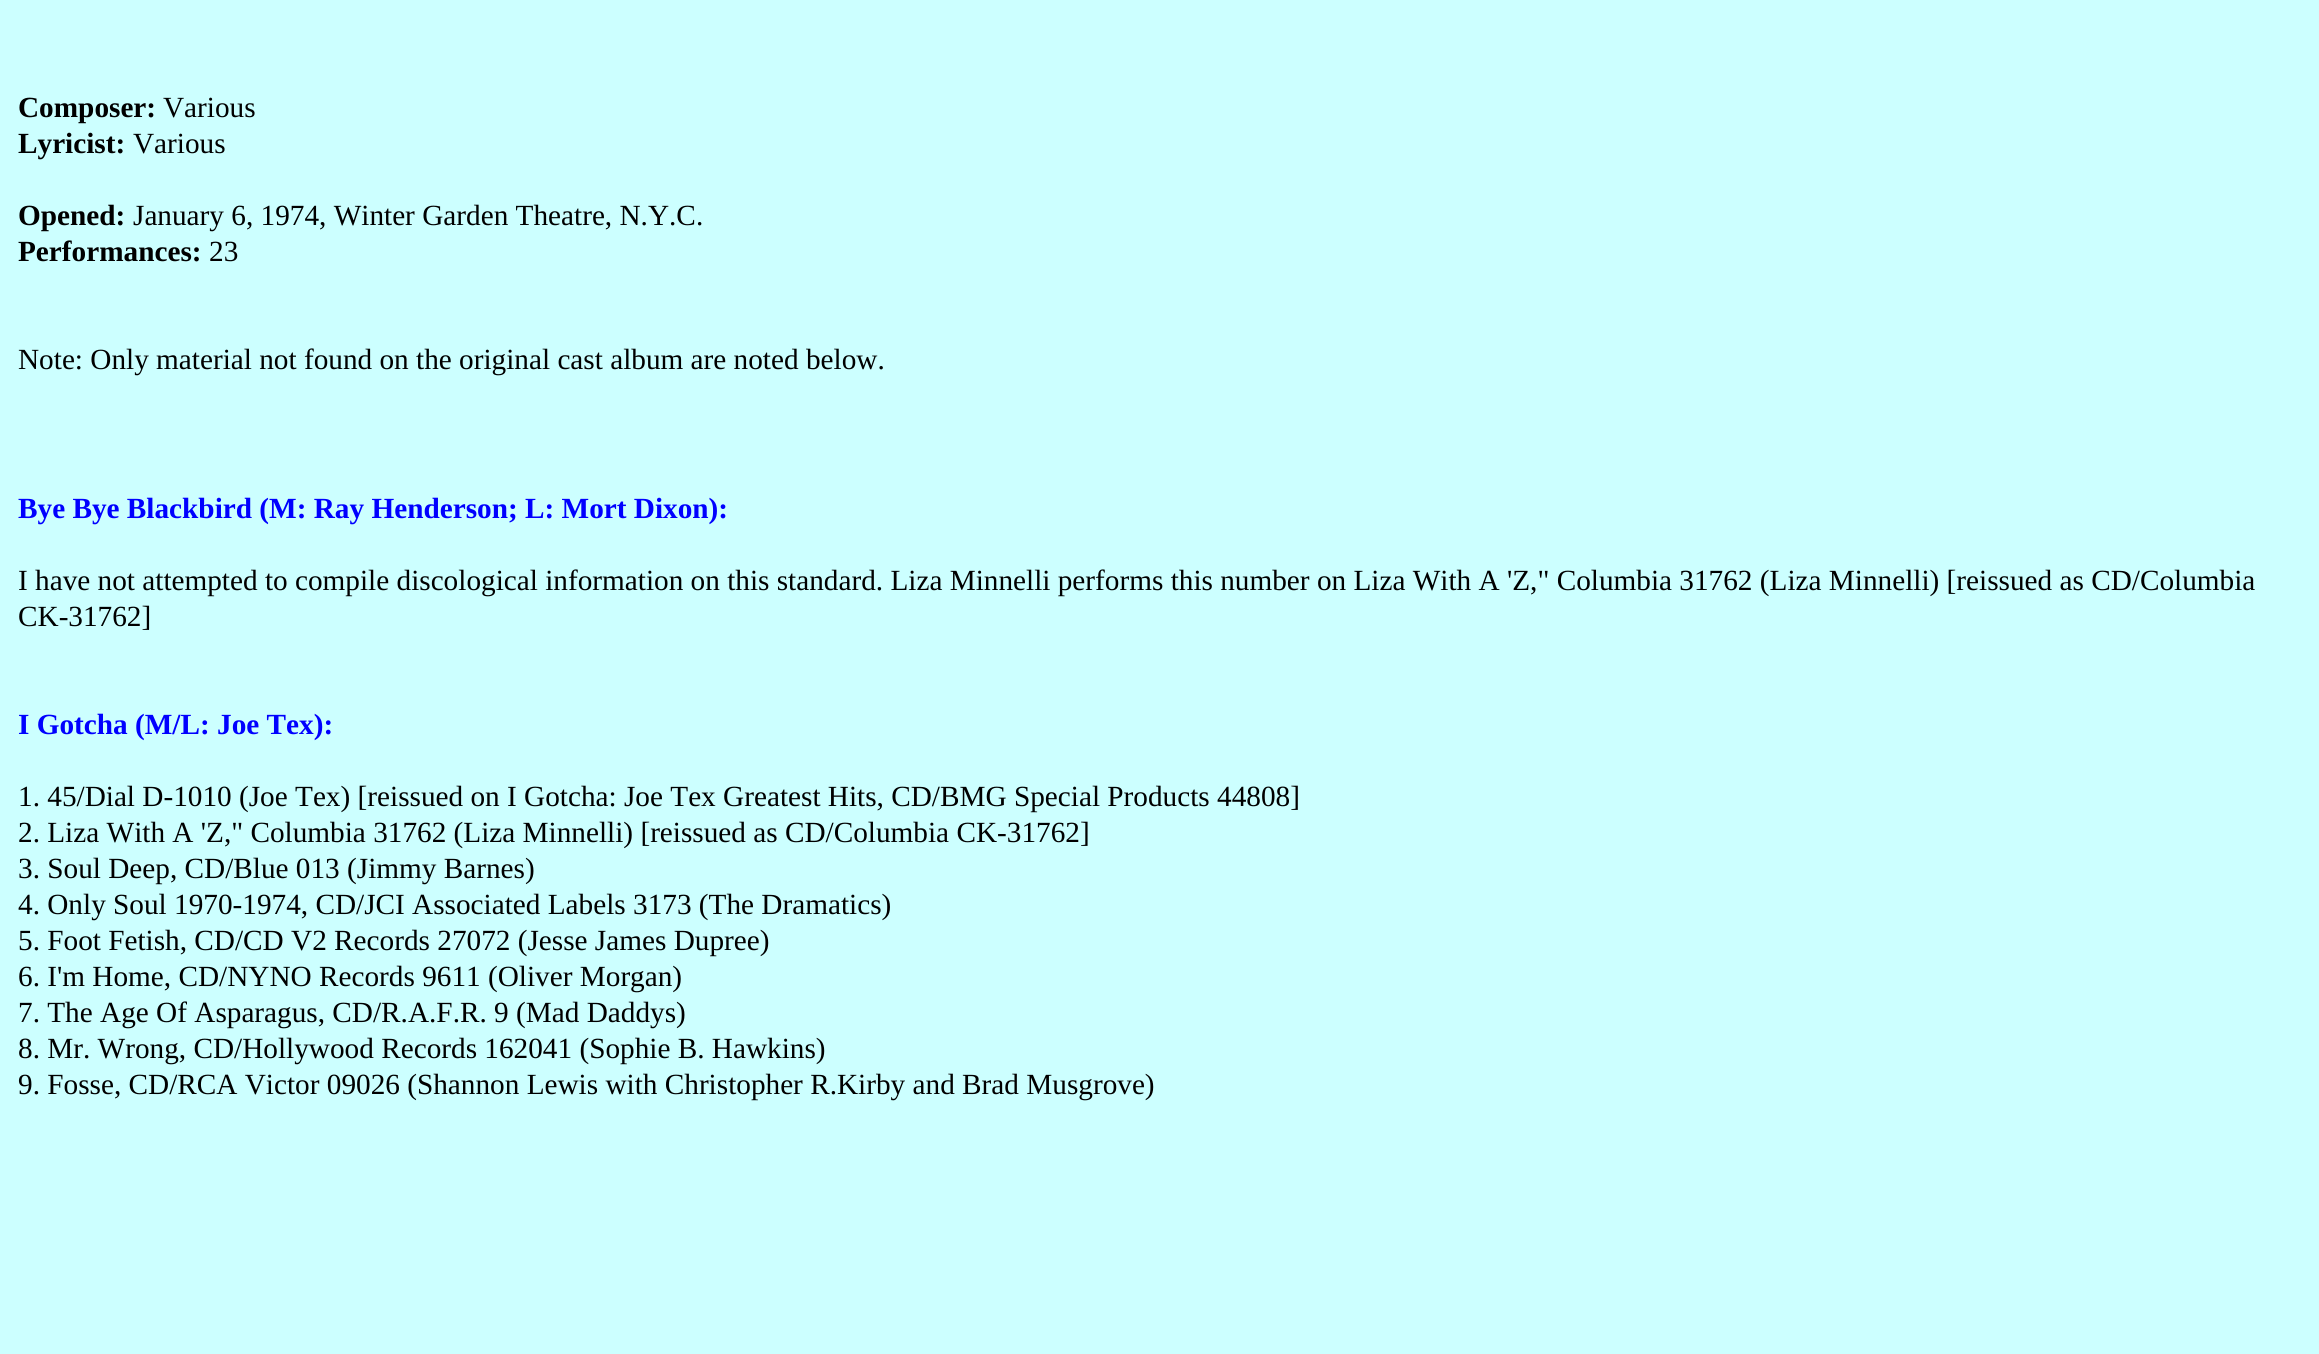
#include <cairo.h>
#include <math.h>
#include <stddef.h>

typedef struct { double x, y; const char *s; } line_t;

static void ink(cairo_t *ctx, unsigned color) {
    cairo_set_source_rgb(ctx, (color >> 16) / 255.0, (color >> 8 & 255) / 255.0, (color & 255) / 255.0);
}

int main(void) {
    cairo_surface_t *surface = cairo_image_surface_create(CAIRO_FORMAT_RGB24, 2319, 1354);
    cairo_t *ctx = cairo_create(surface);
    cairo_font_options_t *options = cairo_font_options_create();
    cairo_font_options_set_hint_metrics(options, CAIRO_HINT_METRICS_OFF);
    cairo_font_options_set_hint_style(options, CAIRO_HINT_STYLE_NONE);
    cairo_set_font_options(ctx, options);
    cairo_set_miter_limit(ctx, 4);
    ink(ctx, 0xCCFFFF);
    cairo_paint(ctx);
    cairo_select_font_face(ctx, "Liberation Serif", CAIRO_FONT_SLANT_NORMAL, CAIRO_FONT_WEIGHT_BOLD);
    cairo_set_font_size(ctx, 29.25);
    ink(ctx, 0x000000);
    cairo_move_to(ctx, 18, 117);
    cairo_show_text(ctx, "Composer:");
    cairo_select_font_face(ctx, "Liberation Serif", CAIRO_FONT_SLANT_NORMAL, CAIRO_FONT_WEIGHT_NORMAL);
    cairo_move_to(ctx, 163, 117);
    cairo_show_text(ctx, "Various");
    cairo_select_font_face(ctx, "Liberation Serif", CAIRO_FONT_SLANT_NORMAL, CAIRO_FONT_WEIGHT_BOLD);
    cairo_move_to(ctx, 18, 153);
    cairo_show_text(ctx, "Lyricist:");
    cairo_select_font_face(ctx, "Liberation Serif", CAIRO_FONT_SLANT_NORMAL, CAIRO_FONT_WEIGHT_NORMAL);
    cairo_move_to(ctx, 133, 153);
    cairo_show_text(ctx, "Various");
    cairo_select_font_face(ctx, "Liberation Serif", CAIRO_FONT_SLANT_NORMAL, CAIRO_FONT_WEIGHT_BOLD);
    cairo_move_to(ctx, 18, 225);
    cairo_show_text(ctx, "Opened:");
    cairo_select_font_face(ctx, "Liberation Serif", CAIRO_FONT_SLANT_NORMAL, CAIRO_FONT_WEIGHT_NORMAL);
    cairo_move_to(ctx, 133, 225);
    cairo_show_text(ctx, "January 6, 1974, Winter Garden Theatre, N.Y.C.");
    cairo_select_font_face(ctx, "Liberation Serif", CAIRO_FONT_SLANT_NORMAL, CAIRO_FONT_WEIGHT_BOLD);
    cairo_move_to(ctx, 18, 261);
    cairo_show_text(ctx, "Performances:");
    cairo_select_font_face(ctx, "Liberation Serif", CAIRO_FONT_SLANT_NORMAL, CAIRO_FONT_WEIGHT_NORMAL);
    cairo_move_to(ctx, 209, 261);
    cairo_show_text(ctx, "23");
    cairo_move_to(ctx, 18, 369);
    cairo_show_text(ctx, "Note: Only material not found on the original cast album are noted below.");
    cairo_select_font_face(ctx, "Liberation Serif", CAIRO_FONT_SLANT_NORMAL, CAIRO_FONT_WEIGHT_BOLD);
    ink(ctx, 0x0000FF);
    cairo_move_to(ctx, 18, 518);
    cairo_show_text(ctx, "Bye Bye Blackbird (M: Ray Henderson; L: Mort Dixon):");
    cairo_select_font_face(ctx, "Liberation Serif", CAIRO_FONT_SLANT_NORMAL, CAIRO_FONT_WEIGHT_NORMAL);
    ink(ctx, 0x000000);
    cairo_move_to(ctx, 18, 590);
    cairo_show_text(ctx, "I have not attempted to compile discological information on this standard. Liza Minnelli performs this number on Liza With A 'Z,\" Columbia 31762 (Liza Minnelli) [reissued as CD/Columbia");
    cairo_move_to(ctx, 18, 626);
    cairo_show_text(ctx, "CK-31762]");
    cairo_select_font_face(ctx, "Liberation Serif", CAIRO_FONT_SLANT_NORMAL, CAIRO_FONT_WEIGHT_BOLD);
    ink(ctx, 0x0000FF);
    cairo_move_to(ctx, 18, 734);
    cairo_show_text(ctx, "I Gotcha (M/L: Joe Tex):");
    cairo_select_font_face(ctx, "Liberation Serif", CAIRO_FONT_SLANT_NORMAL, CAIRO_FONT_WEIGHT_NORMAL);
    ink(ctx, 0x000000);
    {
        static const line_t items[] = {
            {18, 806, "1. 45/Dial D-1010 (Joe Tex) [reissued on I Gotcha: Joe Tex Greatest Hits, CD/BMG Special Products 44808]"},
            {18, 842, "2. Liza With A 'Z,\" Columbia 31762 (Liza Minnelli) [reissued as CD/Columbia CK-31762]"},
            {18, 878, "3. Soul Deep, CD/Blue 013 (Jimmy Barnes)"},
            {18, 914, "4. Only Soul 1970-1974, CD/JCI Associated Labels 3173 (The Dramatics)"},
            {18, 950, "5. Foot Fetish, CD/CD V2 Records 27072 (Jesse James Dupree)"},
            {18, 986, "6. I'm Home, CD/NYNO Records 9611 (Oliver Morgan)"},
            {18, 1022, "7. The Age Of Asparagus, CD/R.A.F.R. 9 (Mad Daddys)"},
            {18, 1058, "8. Mr. Wrong, CD/Hollywood Records 162041 (Sophie B. Hawkins)"},
            {18, 1094, "9. Fosse, CD/RCA Victor 09026 (Shannon Lewis with Christopher R.Kirby and Brad Musgrove)"},
        };
        for (size_t i = 0; i < sizeof items / sizeof *items; i++) {
            cairo_move_to(ctx, items[i].x, items[i].y);
            cairo_show_text(ctx, items[i].s);
        }
    }
    cairo_surface_write_to_png(surface, "image.png");
    cairo_font_options_destroy(options);
    cairo_destroy(ctx);
    cairo_surface_destroy(surface);
    return 0;
}
